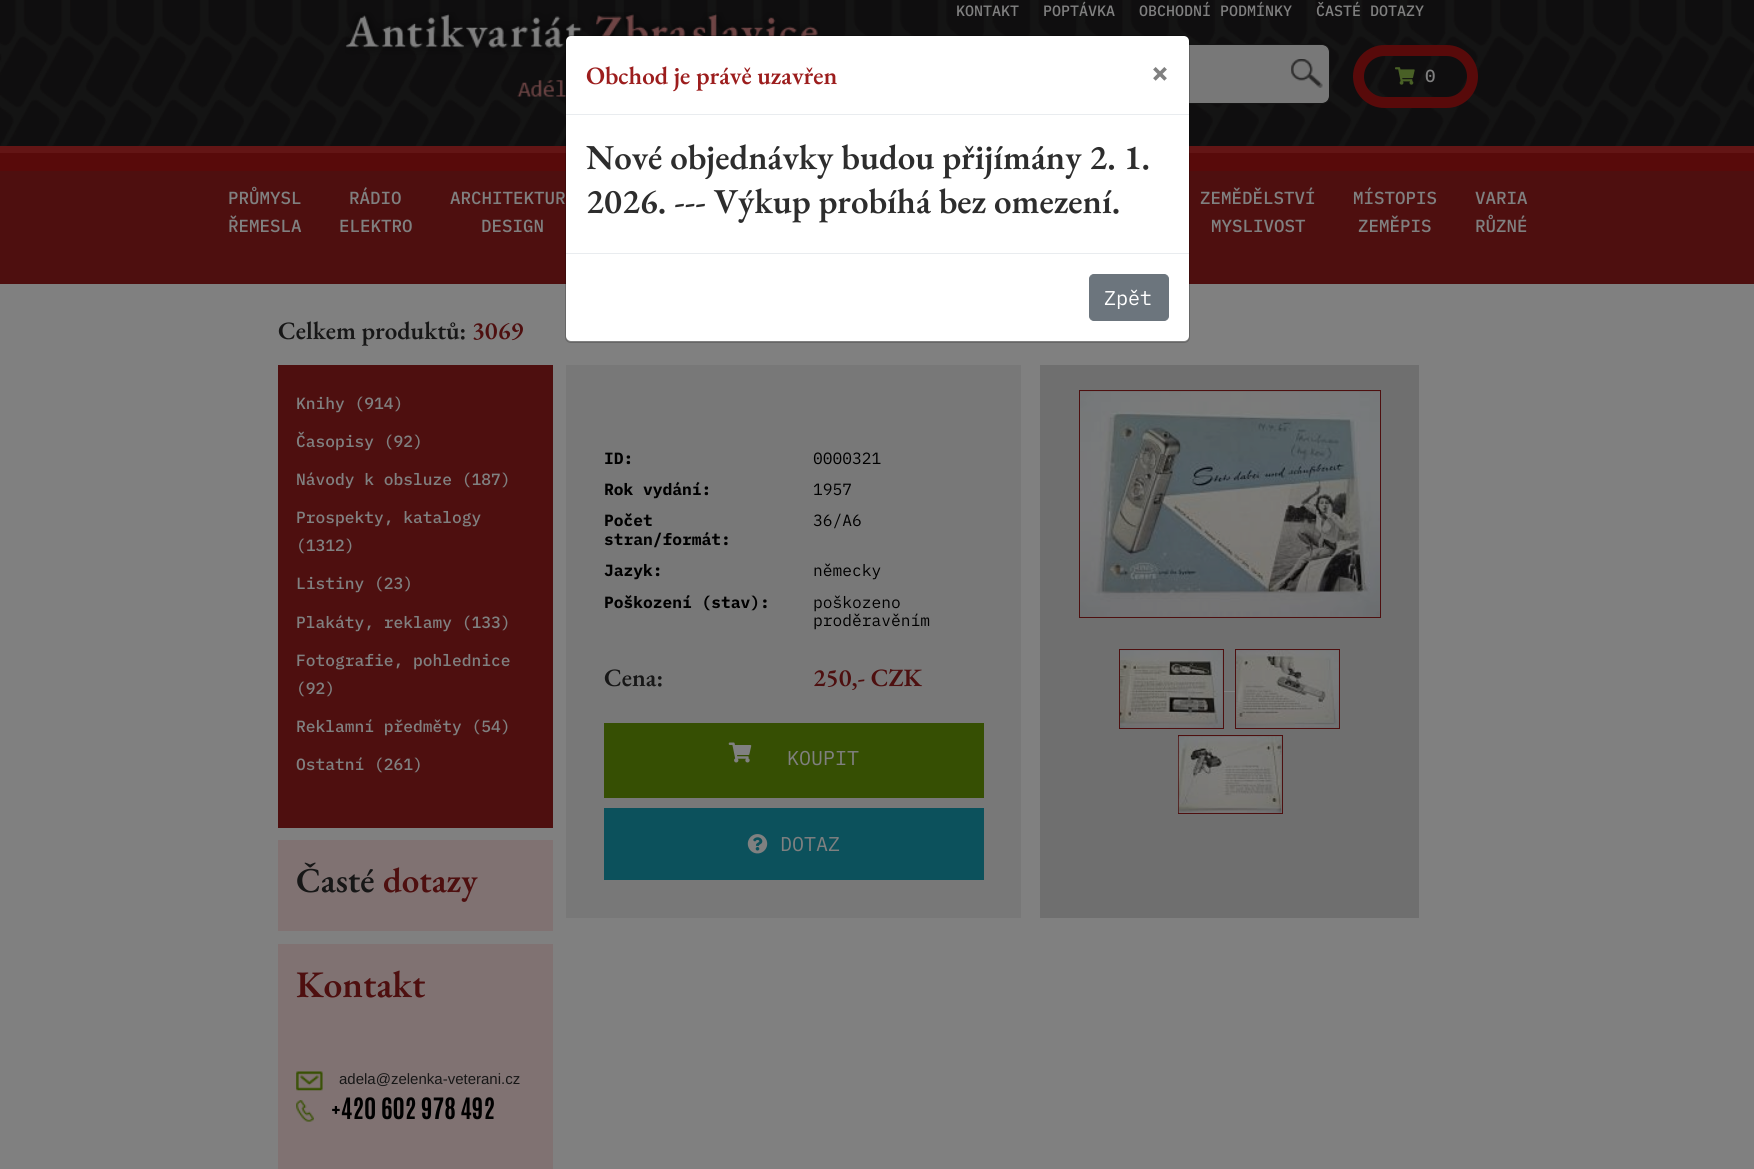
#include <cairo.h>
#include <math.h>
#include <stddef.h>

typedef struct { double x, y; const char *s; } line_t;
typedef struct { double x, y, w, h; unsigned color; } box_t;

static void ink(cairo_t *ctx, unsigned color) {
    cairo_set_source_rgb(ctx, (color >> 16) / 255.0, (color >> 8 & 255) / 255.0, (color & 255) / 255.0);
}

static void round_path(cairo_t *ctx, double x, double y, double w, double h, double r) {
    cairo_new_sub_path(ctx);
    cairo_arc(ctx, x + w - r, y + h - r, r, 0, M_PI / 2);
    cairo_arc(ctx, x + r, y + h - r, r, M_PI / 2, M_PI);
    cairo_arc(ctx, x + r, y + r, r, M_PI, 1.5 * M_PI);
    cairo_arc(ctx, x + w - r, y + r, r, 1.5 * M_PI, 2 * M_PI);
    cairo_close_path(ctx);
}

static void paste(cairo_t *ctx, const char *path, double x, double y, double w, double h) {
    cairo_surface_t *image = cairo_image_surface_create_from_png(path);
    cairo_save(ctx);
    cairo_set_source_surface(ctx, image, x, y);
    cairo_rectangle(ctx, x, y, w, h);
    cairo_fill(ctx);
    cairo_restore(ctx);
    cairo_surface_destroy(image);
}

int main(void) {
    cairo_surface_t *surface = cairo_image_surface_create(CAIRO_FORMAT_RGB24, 1754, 1169);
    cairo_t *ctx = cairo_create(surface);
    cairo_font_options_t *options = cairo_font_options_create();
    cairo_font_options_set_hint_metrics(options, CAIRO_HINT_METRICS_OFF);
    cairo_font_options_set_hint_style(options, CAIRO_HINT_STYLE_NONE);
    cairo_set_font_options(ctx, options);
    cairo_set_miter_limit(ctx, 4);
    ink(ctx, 0x808080);
    cairo_paint(ctx);
    ink(ctx, 0x141414);
    cairo_rectangle(ctx, 0, 0, 1754, 146);
    cairo_fill(ctx);
    paste(ctx, "media/1.png", 0, 0, 1754, 146);
    paste(ctx, "media/2.png", 345, 12, 475, 85);
    cairo_select_font_face(ctx, "IBM Plex Mono Medium", CAIRO_FONT_SLANT_NORMAL, CAIRO_FONT_WEIGHT_NORMAL);
    cairo_set_font_size(ctx, 15);
    ink(ctx, 0x808080);
    {
        static const line_t items[] = {
            {956, 16, "KONTAKT"},
            {1043, 16, "POPTÁVKA"},
            {1139, 16, "OBCHODNÍ PODMÍNKY"},
            {1316, 16, "ČASTÉ DOTAZY"},
        };
        for (size_t i = 0; i < sizeof items / sizeof *items; i++) {
            cairo_move_to(ctx, items[i].x, items[i].y);
            cairo_show_text(ctx, items[i].s);
        }
    }
    round_path(ctx, 1358.5, 50.5, 114, 52, 26);
    ink(ctx, 0x580A0A);
    cairo_set_line_width(ctx, 11);
    cairo_stroke(ctx);
    paste(ctx, "media/3.png", 1395, 67, 20, 18);
    cairo_set_font_size(ctx, 17.5);
    ink(ctx, 0x808080);
    cairo_move_to(ctx, 1425, 82);
    cairo_show_text(ctx, "0");
    ink(ctx, 0x787878);
    round_path(ctx, 831, 45, 498, 58, 6);
    cairo_fill(ctx);
    round_path(ctx, 830.5, 44.5, 499, 59, 7.5);
    ink(ctx, 0x141414);
    cairo_set_line_width(ctx, 1);
    cairo_stroke(ctx);
    paste(ctx, "media/4.png", 1291, 59, 32, 29);
    {
        static const box_t items[] = {
            {0, 153, 1754, 18, 0x580A0A},
            {0, 146, 1754, 7, 0x631515},
            {0, 171, 1754, 113, 0x4E0F0F},
        };
        for (size_t i = 0; i < sizeof items / sizeof *items; i++) {
            ink(ctx, items[i].color);
            cairo_rectangle(ctx, items[i].x, items[i].y, items[i].w, items[i].h);
            cairo_fill(ctx);
        }
    }
    ink(ctx, 0xFFFFFF);
    round_path(ctx, 566, 36, 623, 305, 5);
    cairo_fill(ctx);
    round_path(ctx, 565.5, 35.5, 624, 307, 5.5);
    cairo_set_source_rgba(ctx, 0, 0, 0, 0.2);
    cairo_stroke(ctx);
    ink(ctx, 0xE9ECEF);
    cairo_rectangle(ctx, 566, 114, 623, 1);
    cairo_fill(ctx);
    cairo_select_font_face(ctx, "EB Garamond SemiBold", CAIRO_FONT_SLANT_NORMAL, CAIRO_FONT_WEIGHT_NORMAL);
    cairo_set_font_size(ctx, 25);
    ink(ctx, 0x9C1D1D);
    cairo_move_to(ctx, 586, 84);
    cairo_show_text(ctx, "Obchod je právě uzavřen");
    cairo_select_font_face(ctx, "IBM Plex Mono", CAIRO_FONT_SLANT_NORMAL, CAIRO_FONT_WEIGHT_BOLD);
    cairo_set_font_size(ctx, 30);
    ink(ctx, 0x808080);
    cairo_move_to(ctx, 1151, 83);
    cairo_show_text(ctx, "×");
    cairo_select_font_face(ctx, "EB Garamond SemiBold", CAIRO_FONT_SLANT_NORMAL, CAIRO_FONT_WEIGHT_NORMAL);
    cairo_set_font_size(ctx, 35);
    ink(ctx, 0x2D2D2D);
    cairo_move_to(ctx, 586, 169);
    cairo_show_text(ctx, "Nové objednávky budou přijímány 2. 1.");
    cairo_move_to(ctx, 586, 213);
    cairo_show_text(ctx, "2026. --- Výkup probíhá bez omezení.");
    ink(ctx, 0xE9ECEF);
    cairo_rectangle(ctx, 566, 253, 623, 1);
    cairo_fill(ctx);
    ink(ctx, 0x6C757D);
    round_path(ctx, 1089.5, 274.5, 79, 46, 4.5);
    cairo_fill_preserve(ctx);
    cairo_stroke(ctx);
    cairo_select_font_face(ctx, "IBM Plex Mono", CAIRO_FONT_SLANT_NORMAL, CAIRO_FONT_WEIGHT_NORMAL);
    cairo_set_font_size(ctx, 20);
    ink(ctx, 0xFFFFFF);
    cairo_move_to(ctx, 1104, 305);
    cairo_show_text(ctx, "Zpět");
    cairo_select_font_face(ctx, "IBM Plex Mono Medium", CAIRO_FONT_SLANT_NORMAL, CAIRO_FONT_WEIGHT_NORMAL);
    cairo_set_font_size(ctx, 17.5);
    ink(ctx, 0x808080);
    {
        static const line_t items[] = {
            {228, 204, "PRŮMYSL"},
            {228, 232, "ŘEMESLA"},
            {349, 204, "RÁDIO"},
            {339, 232, "ELEKTRO"},
            {450, 204, "ARCHITEKTUR"},
            {481, 232, "DESIGN"},
            {1200, 204, "ZEMĚDĚLSTVÍ"},
            {1211, 232, "MYSLIVOST"},
            {1353, 204, "MÍSTOPIS"},
            {1358, 232, "ZEMĚPIS"},
            {1475, 204, "VARIA"},
            {1475, 232, "RŮZNÉ"},
        };
        for (size_t i = 0; i < sizeof items / sizeof *items; i++) {
            cairo_move_to(ctx, items[i].x, items[i].y);
            cairo_show_text(ctx, items[i].s);
        }
    }
    cairo_select_font_face(ctx, "EB Garamond SemiBold", CAIRO_FONT_SLANT_NORMAL, CAIRO_FONT_WEIGHT_NORMAL);
    cairo_set_font_size(ctx, 25);
    ink(ctx, 0x171717);
    cairo_move_to(ctx, 278, 339);
    cairo_show_text(ctx, "Celkem produktů:");
    ink(ctx, 0x4E0F0F);
    cairo_move_to(ctx, 472, 339);
    cairo_show_text(ctx, "3069");
    cairo_rectangle(ctx, 278, 365, 275, 463);
    cairo_fill(ctx);
    cairo_select_font_face(ctx, "IBM Plex Mono Medium", CAIRO_FONT_SLANT_NORMAL, CAIRO_FONT_WEIGHT_NORMAL);
    cairo_set_font_size(ctx, 16.25);
    ink(ctx, 0x808080);
    {
        static const line_t items[] = {
            {296, 409, "Knihy (914)"},
            {296, 447, "Časopisy (92)"},
            {296, 485, "Návody k obsluze (187)"},
            {296, 523, "Prospekty, katalogy"},
            {296, 551, "(1312)"},
            {296, 589, "Listiny (23)"},
            {296, 628, "Plakáty, reklamy (133)"},
            {296, 666, "Fotografie, pohlednice"},
            {296, 694, "(92)"},
            {296, 732, "Reklamní předměty (54)"},
            {296, 770, "Ostatní (261)"},
        };
        for (size_t i = 0; i < sizeof items / sizeof *items; i++) {
            cairo_move_to(ctx, items[i].x, items[i].y);
            cairo_show_text(ctx, items[i].s);
        }
    }
    ink(ctx, 0x807272);
    cairo_rectangle(ctx, 278, 840, 275, 91);
    cairo_fill(ctx);
    cairo_select_font_face(ctx, "EB Garamond SemiBold", CAIRO_FONT_SLANT_NORMAL, CAIRO_FONT_WEIGHT_NORMAL);
    cairo_set_font_size(ctx, 35);
    ink(ctx, 0x171717);
    cairo_move_to(ctx, 296, 892);
    cairo_show_text(ctx, "Časté");
    ink(ctx, 0x4E0F0F);
    cairo_move_to(ctx, 383, 892);
    cairo_show_text(ctx, "dotazy");
    ink(ctx, 0x807272);
    cairo_rectangle(ctx, 278, 944, 275, 225);
    cairo_fill(ctx);
    cairo_set_font_size(ctx, 37.5);
    ink(ctx, 0x4E0F0F);
    cairo_move_to(ctx, 296, 997);
    cairo_show_text(ctx, "Kontakt");
    paste(ctx, "media/5.png", 296, 1071, 27, 20);
    cairo_select_font_face(ctx, "Liberation Sans", CAIRO_FONT_SLANT_NORMAL, CAIRO_FONT_WEIGHT_NORMAL);
    cairo_set_font_size(ctx, 15);
    ink(ctx, 0x171717);
    cairo_move_to(ctx, 339, 1084);
    cairo_show_text(ctx, "adela@zelenka-veterani.cz");
    paste(ctx, "media/6.png", 296, 1100, 18, 22);
    cairo_select_font_face(ctx, "Antonio", CAIRO_FONT_SLANT_NORMAL, CAIRO_FONT_WEIGHT_BOLD);
    cairo_set_font_size(ctx, 25);
    ink(ctx, 0x000000);
    cairo_move_to(ctx, 331, 1119);
    cairo_show_text(ctx, "+420 602 978 492");
    ink(ctx, 0x787878);
    cairo_rectangle(ctx, 566, 365, 455, 553);
    cairo_fill(ctx);
    cairo_select_font_face(ctx, "IBM Plex Mono", CAIRO_FONT_SLANT_NORMAL, CAIRO_FONT_WEIGHT_BOLD);
    cairo_set_font_size(ctx, 16.25);
    ink(ctx, 0x000000);
    cairo_move_to(ctx, 604, 464);
    cairo_show_text(ctx, "ID:");
    cairo_select_font_face(ctx, "IBM Plex Mono", CAIRO_FONT_SLANT_NORMAL, CAIRO_FONT_WEIGHT_NORMAL);
    cairo_move_to(ctx, 813, 464);
    cairo_show_text(ctx, "0000321");
    cairo_select_font_face(ctx, "IBM Plex Mono", CAIRO_FONT_SLANT_NORMAL, CAIRO_FONT_WEIGHT_BOLD);
    cairo_move_to(ctx, 604, 495);
    cairo_show_text(ctx, "Rok vydání:");
    cairo_select_font_face(ctx, "IBM Plex Mono", CAIRO_FONT_SLANT_NORMAL, CAIRO_FONT_WEIGHT_NORMAL);
    cairo_move_to(ctx, 813, 495);
    cairo_show_text(ctx, "1957");
    cairo_select_font_face(ctx, "IBM Plex Mono", CAIRO_FONT_SLANT_NORMAL, CAIRO_FONT_WEIGHT_BOLD);
    cairo_move_to(ctx, 604, 526);
    cairo_show_text(ctx, "Počet");
    cairo_move_to(ctx, 604, 545);
    cairo_show_text(ctx, "stran/formát:");
    cairo_select_font_face(ctx, "IBM Plex Mono", CAIRO_FONT_SLANT_NORMAL, CAIRO_FONT_WEIGHT_NORMAL);
    cairo_move_to(ctx, 813, 526);
    cairo_show_text(ctx, "36/A6");
    cairo_select_font_face(ctx, "IBM Plex Mono", CAIRO_FONT_SLANT_NORMAL, CAIRO_FONT_WEIGHT_BOLD);
    cairo_move_to(ctx, 604, 576);
    cairo_show_text(ctx, "Jazyk:");
    cairo_select_font_face(ctx, "IBM Plex Mono", CAIRO_FONT_SLANT_NORMAL, CAIRO_FONT_WEIGHT_NORMAL);
    cairo_move_to(ctx, 813, 576);
    cairo_show_text(ctx, "německy");
    cairo_select_font_face(ctx, "IBM Plex Mono", CAIRO_FONT_SLANT_NORMAL, CAIRO_FONT_WEIGHT_BOLD);
    cairo_move_to(ctx, 604, 608);
    cairo_show_text(ctx, "Poškození (stav):");
    cairo_select_font_face(ctx, "IBM Plex Mono", CAIRO_FONT_SLANT_NORMAL, CAIRO_FONT_WEIGHT_NORMAL);
    cairo_move_to(ctx, 813, 608);
    cairo_show_text(ctx, "poškozeno");
    cairo_move_to(ctx, 813, 626);
    cairo_show_text(ctx, "proděravěním");
    cairo_select_font_face(ctx, "EB Garamond SemiBold", CAIRO_FONT_SLANT_NORMAL, CAIRO_FONT_WEIGHT_NORMAL);
    cairo_set_font_size(ctx, 25);
    ink(ctx, 0x171717);
    cairo_move_to(ctx, 604, 686);
    cairo_show_text(ctx, "Cena:");
    ink(ctx, 0x4E0F0F);
    cairo_move_to(ctx, 813, 686);
    cairo_show_text(ctx, "250,- CZK");
    ink(ctx, 0x364F03);
    cairo_rectangle(ctx, 604, 723, 380, 75);
    cairo_fill(ctx);
    paste(ctx, "media/7.png", 728, 742, 24, 21);
    cairo_select_font_face(ctx, "IBM Plex Mono", CAIRO_FONT_SLANT_NORMAL, CAIRO_FONT_WEIGHT_NORMAL);
    cairo_set_font_size(ctx, 20);
    ink(ctx, 0x808080);
    cairo_move_to(ctx, 787, 765);
    cairo_show_text(ctx, "KOUPIT");
    ink(ctx, 0x0C515C);
    cairo_rectangle(ctx, 604, 808, 380, 72);
    cairo_fill(ctx);
    paste(ctx, "media/8.png", 747, 834, 21, 20);
    ink(ctx, 0x808080);
    cairo_move_to(ctx, 780, 851);
    cairo_show_text(ctx, "DOTAZ");
    ink(ctx, 0x6F6F6F);
    cairo_rectangle(ctx, 1040, 365, 379, 553);
    cairo_fill(ctx);
    cairo_rectangle(ctx, 1079.5, 390.5, 301, 227);
    ink(ctx, 0x4E0F0F);
    cairo_stroke(ctx);
    paste(ctx, "media/9.png", 1080, 391, 300, 226);
    cairo_rectangle(ctx, 1119.5, 649.5, 104, 79);
    cairo_stroke(ctx);
    cairo_rectangle(ctx, 1235.5, 649.5, 104, 79);
    cairo_stroke(ctx);
    paste(ctx, "media/10.png", 1120, 650, 103, 78);
    ink(ctx, 0x808080);
    cairo_rectangle(ctx, 1224, 691, 11, 1);
    cairo_fill(ctx);
    paste(ctx, "media/11.png", 1236, 650, 103, 78);
    cairo_rectangle(ctx, 1178.5, 735.5, 104, 78);
    ink(ctx, 0x4E0F0F);
    cairo_stroke(ctx);
    paste(ctx, "media/12.png", 1178, 736, 104, 77);
    cairo_surface_write_to_png(surface, "image.png");
    cairo_font_options_destroy(options);
    cairo_destroy(ctx);
    cairo_surface_destroy(surface);
    return 0;
}
